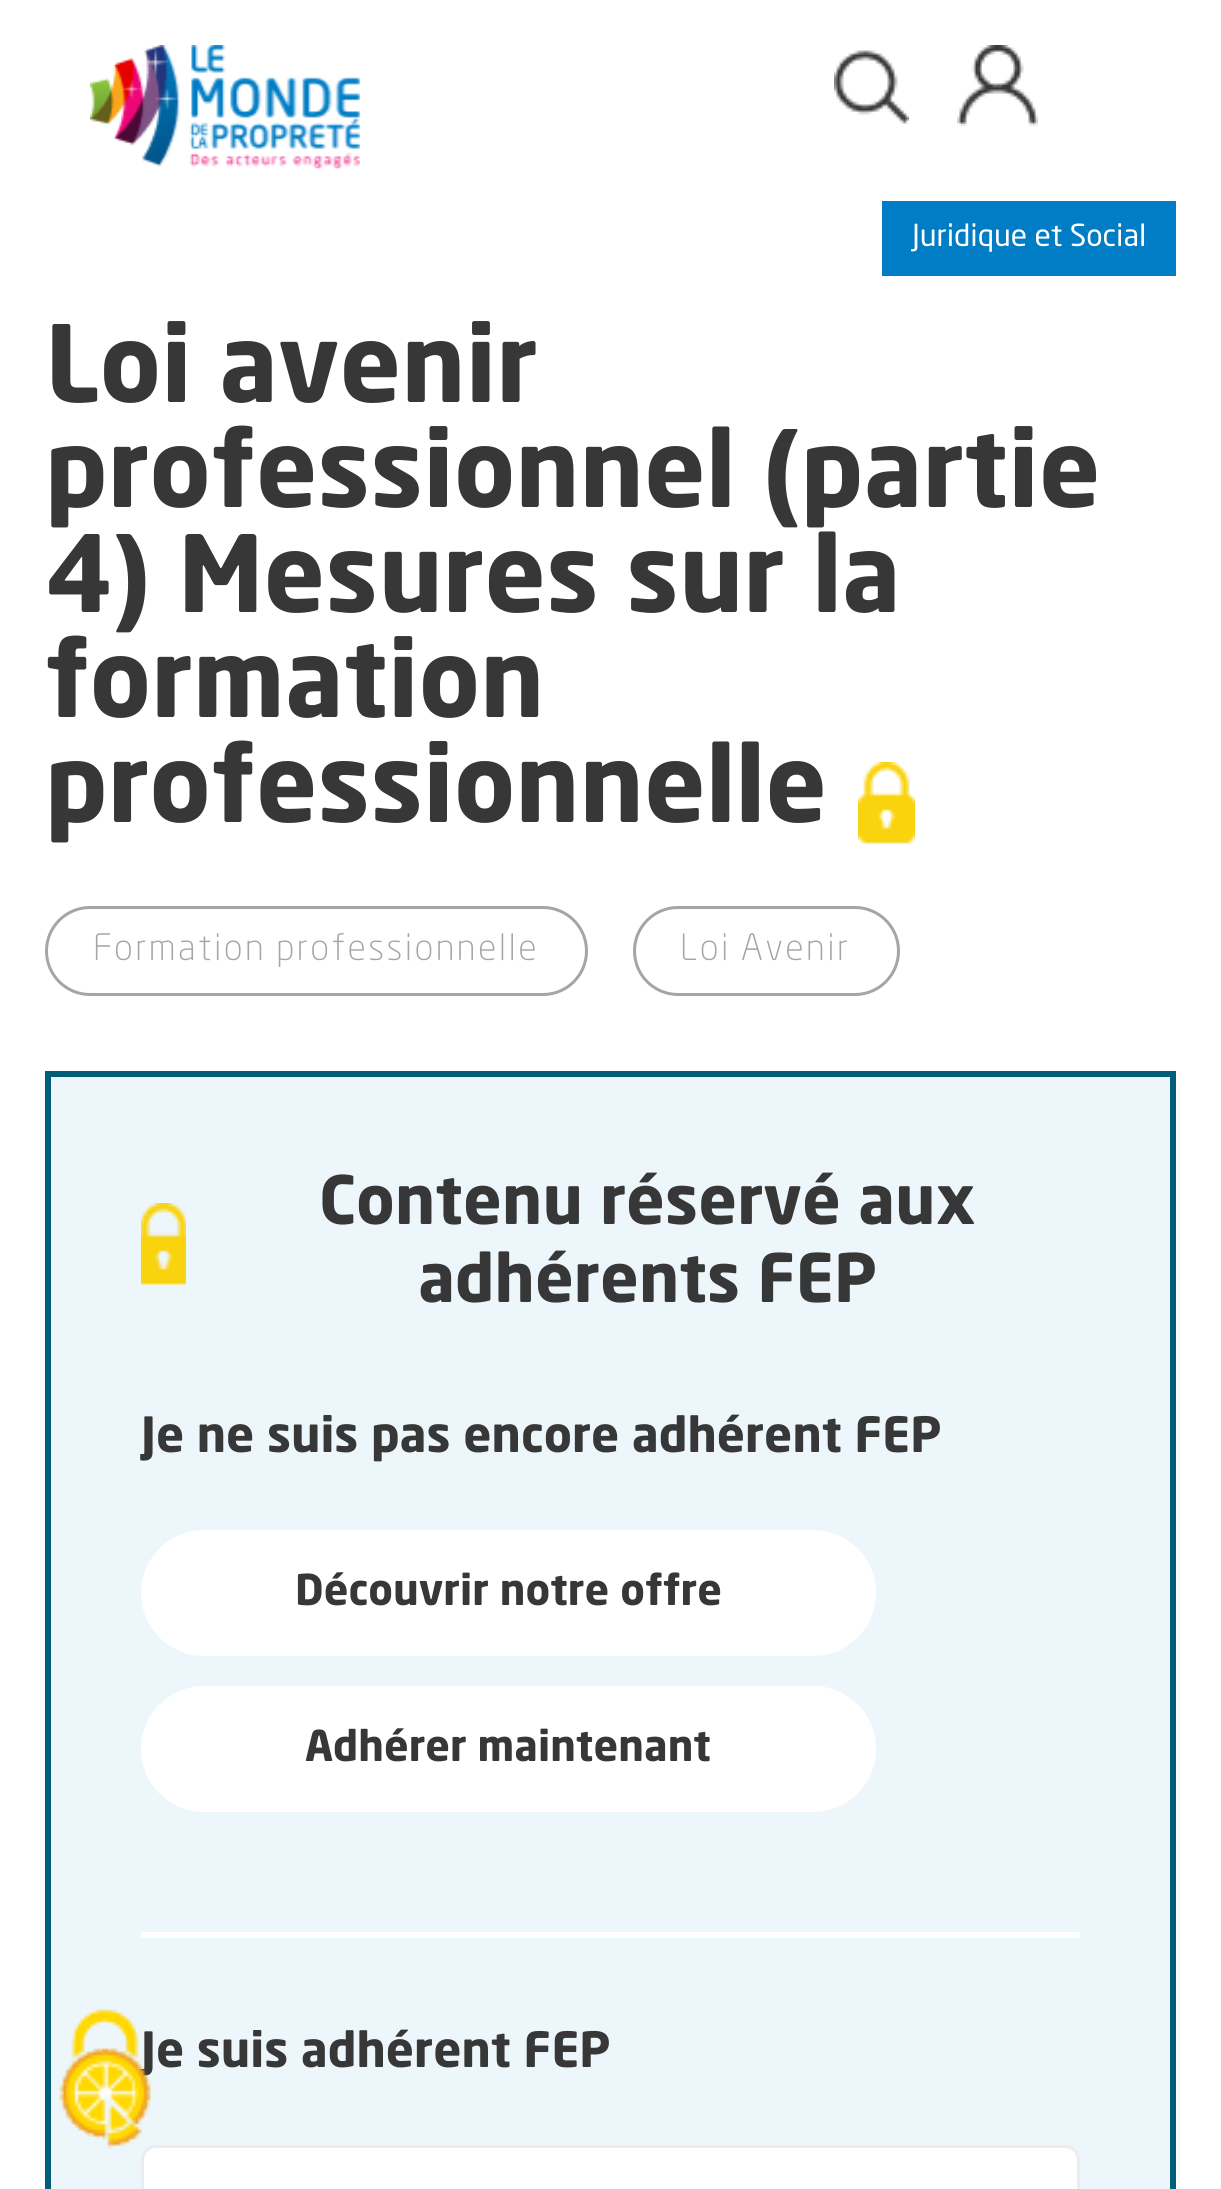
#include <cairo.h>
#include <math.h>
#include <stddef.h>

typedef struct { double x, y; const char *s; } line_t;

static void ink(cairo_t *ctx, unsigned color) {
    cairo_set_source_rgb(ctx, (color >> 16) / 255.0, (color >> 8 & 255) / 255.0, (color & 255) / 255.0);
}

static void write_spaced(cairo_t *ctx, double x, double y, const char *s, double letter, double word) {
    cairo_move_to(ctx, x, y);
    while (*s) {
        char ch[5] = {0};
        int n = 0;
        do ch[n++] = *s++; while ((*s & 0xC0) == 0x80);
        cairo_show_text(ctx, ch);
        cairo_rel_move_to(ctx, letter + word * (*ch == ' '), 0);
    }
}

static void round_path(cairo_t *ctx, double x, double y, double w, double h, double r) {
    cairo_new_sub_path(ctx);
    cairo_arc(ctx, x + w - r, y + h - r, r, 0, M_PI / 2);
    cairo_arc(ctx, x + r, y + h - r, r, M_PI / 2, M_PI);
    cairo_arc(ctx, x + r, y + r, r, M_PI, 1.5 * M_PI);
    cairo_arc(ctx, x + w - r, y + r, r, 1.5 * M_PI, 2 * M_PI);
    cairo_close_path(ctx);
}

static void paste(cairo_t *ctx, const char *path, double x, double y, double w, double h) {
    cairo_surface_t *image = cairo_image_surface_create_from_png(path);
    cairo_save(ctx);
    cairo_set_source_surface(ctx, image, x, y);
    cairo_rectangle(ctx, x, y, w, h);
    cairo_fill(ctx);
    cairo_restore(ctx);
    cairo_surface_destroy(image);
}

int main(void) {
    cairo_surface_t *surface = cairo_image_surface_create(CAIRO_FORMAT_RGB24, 1221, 2189);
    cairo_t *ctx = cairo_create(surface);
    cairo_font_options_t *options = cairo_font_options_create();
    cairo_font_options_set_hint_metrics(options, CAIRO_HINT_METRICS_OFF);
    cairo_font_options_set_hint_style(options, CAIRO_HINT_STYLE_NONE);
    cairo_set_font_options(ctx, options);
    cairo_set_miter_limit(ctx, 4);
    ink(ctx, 0xFFFFFF);
    cairo_paint(ctx);
    paste(ctx, "media/1.png", 90, 45, 270, 124);
    paste(ctx, "media/2.png", 834, 50, 75, 74);
    paste(ctx, "media/3.png", 957, 45, 81, 81);
    ink(ctx, 0x007DC5);
    cairo_rectangle(ctx, 882, 201, 294, 75);
    cairo_fill(ctx);
    cairo_select_font_face(ctx, "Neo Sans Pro", CAIRO_FONT_SLANT_NORMAL, CAIRO_FONT_WEIGHT_NORMAL);
    cairo_set_font_size(ctx, 30);
    ink(ctx, 0xFFFFFF);
    cairo_move_to(ctx, 912, 246);
    cairo_show_text(ctx, "Juridique et Social");
    cairo_select_font_face(ctx, "Neo Sans Pro", CAIRO_FONT_SLANT_NORMAL, CAIRO_FONT_WEIGHT_BOLD);
    cairo_set_font_size(ctx, 105);
    ink(ctx, 0x373737);
    {
        static const line_t items[] = {
            {45, 402, "Loi avenir"},
            {45, 507, "professionnel (partie"},
            {45, 612, "4) Mesures sur la"},
            {45, 717, "formation"},
            {45, 822, "professionnelle"},
        };
        for (size_t i = 0; i < sizeof items / sizeof *items; i++) {
            cairo_move_to(ctx, items[i].x, items[i].y);
            cairo_show_text(ctx, items[i].s);
        }
    }
    paste(ctx, "media/4.png", 858, 762, 57, 82);
    round_path(ctx, 46.5, 907.5, 540, 87, 43.5);
    ink(ctx, 0xA5A5A5);
    cairo_set_line_width(ctx, 3);
    cairo_stroke(ctx);
    cairo_select_font_face(ctx, "Neo Sans Pro Light", CAIRO_FONT_SLANT_NORMAL, CAIRO_FONT_WEIGHT_NORMAL);
    cairo_set_font_size(ctx, 36);
    write_spaced(ctx, 93, 960, "Formation professionnelle", 2.4, 0);
    round_path(ctx, 634.5, 907.5, 264, 87, 43.5);
    cairo_stroke(ctx);
    write_spaced(ctx, 680, 960, "Loi Avenir", 2.4, 0);
    ink(ctx, 0xEDF6FB);
    cairo_rectangle(ctx, 48, 1074, 1125, 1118);
    cairo_fill_preserve(ctx);
    ink(ctx, 0x005E78);
    cairo_set_line_width(ctx, 6);
    cairo_stroke(ctx);
    paste(ctx, "media/5.png", 141, 1203, 45, 82);
    cairo_select_font_face(ctx, "Neo Sans Pro", CAIRO_FONT_SLANT_NORMAL, CAIRO_FONT_WEIGHT_BOLD);
    cairo_set_font_size(ctx, 66);
    ink(ctx, 0x373737);
    cairo_move_to(ctx, 319, 1224);
    cairo_show_text(ctx, "Contenu réservé aux");
    cairo_move_to(ctx, 418, 1302);
    cairo_show_text(ctx, "adhérents FEP");
    ink(ctx, 0xFFFFFF);
    cairo_rectangle(ctx, 141, 1932, 939, 6);
    cairo_fill(ctx);
    cairo_set_font_size(ctx, 48);
    ink(ctx, 0x373737);
    cairo_move_to(ctx, 141, 1452);
    cairo_show_text(ctx, "Je ne suis pas encore adhérent FEP");
    ink(ctx, 0xFFFFFF);
    round_path(ctx, 142.5, 1531.5, 732, 123, 61.5);
    cairo_fill_preserve(ctx);
    cairo_set_line_width(ctx, 3);
    cairo_stroke(ctx);
    cairo_set_font_size(ctx, 42);
    ink(ctx, 0x373737);
    cairo_move_to(ctx, 295, 1605);
    cairo_show_text(ctx, "Découvrir notre offre");
    ink(ctx, 0xFFFFFF);
    round_path(ctx, 142.5, 1687.5, 732, 123, 61.5);
    cairo_fill_preserve(ctx);
    cairo_stroke(ctx);
    ink(ctx, 0x373737);
    cairo_move_to(ctx, 305, 1761);
    cairo_show_text(ctx, "Adhérer maintenant");
    cairo_set_font_size(ctx, 48);
    cairo_move_to(ctx, 141, 2067);
    cairo_show_text(ctx, "Je suis adhérent FEP");
    ink(ctx, 0xFFFFFF);
    round_path(ctx, 142.5, 2146.5, 936, 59, 13.5);
    cairo_fill_preserve(ctx);
    ink(ctx, 0xECECEC);
    cairo_stroke(ctx);
    paste(ctx, "media/6.png", 59, 2009, 92, 140);
    cairo_surface_write_to_png(surface, "image.png");
    cairo_font_options_destroy(options);
    cairo_destroy(ctx);
    cairo_surface_destroy(surface);
    return 0;
}
